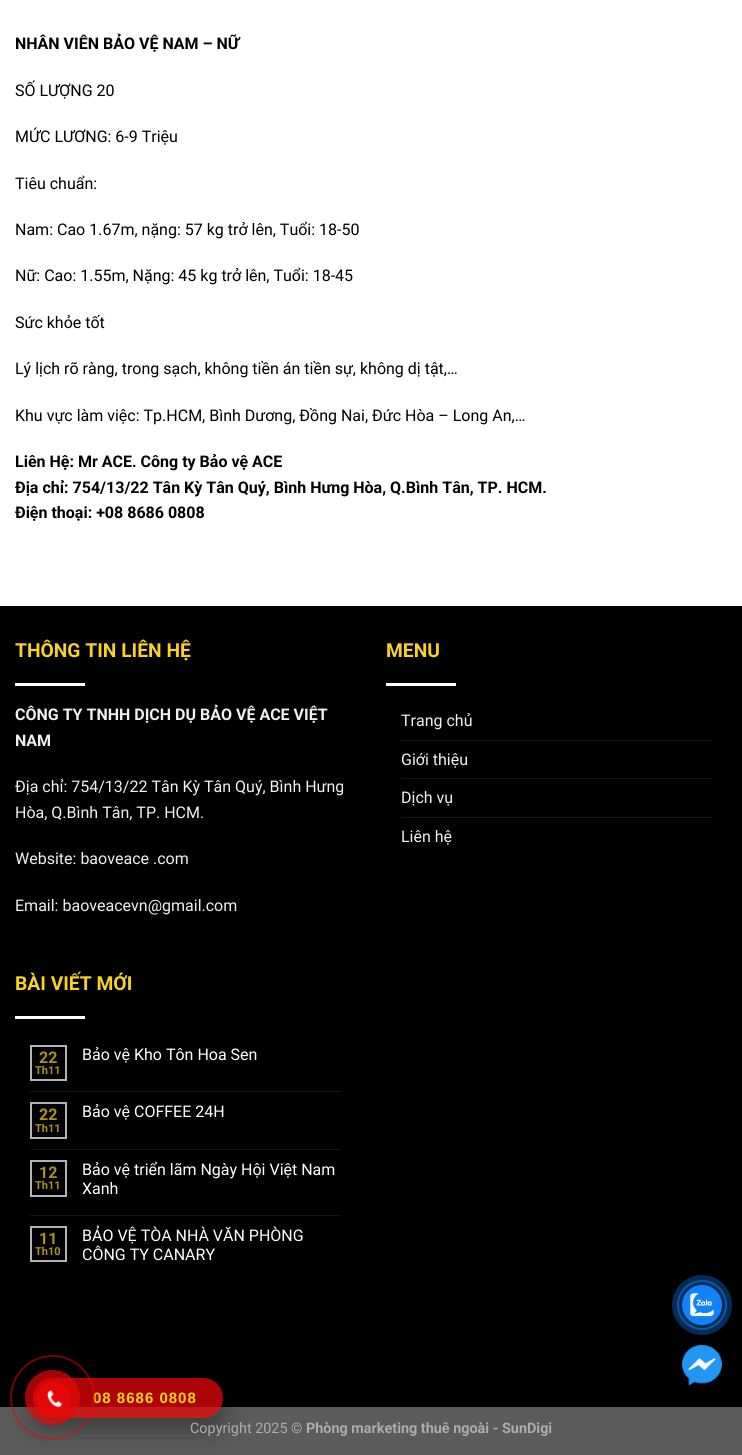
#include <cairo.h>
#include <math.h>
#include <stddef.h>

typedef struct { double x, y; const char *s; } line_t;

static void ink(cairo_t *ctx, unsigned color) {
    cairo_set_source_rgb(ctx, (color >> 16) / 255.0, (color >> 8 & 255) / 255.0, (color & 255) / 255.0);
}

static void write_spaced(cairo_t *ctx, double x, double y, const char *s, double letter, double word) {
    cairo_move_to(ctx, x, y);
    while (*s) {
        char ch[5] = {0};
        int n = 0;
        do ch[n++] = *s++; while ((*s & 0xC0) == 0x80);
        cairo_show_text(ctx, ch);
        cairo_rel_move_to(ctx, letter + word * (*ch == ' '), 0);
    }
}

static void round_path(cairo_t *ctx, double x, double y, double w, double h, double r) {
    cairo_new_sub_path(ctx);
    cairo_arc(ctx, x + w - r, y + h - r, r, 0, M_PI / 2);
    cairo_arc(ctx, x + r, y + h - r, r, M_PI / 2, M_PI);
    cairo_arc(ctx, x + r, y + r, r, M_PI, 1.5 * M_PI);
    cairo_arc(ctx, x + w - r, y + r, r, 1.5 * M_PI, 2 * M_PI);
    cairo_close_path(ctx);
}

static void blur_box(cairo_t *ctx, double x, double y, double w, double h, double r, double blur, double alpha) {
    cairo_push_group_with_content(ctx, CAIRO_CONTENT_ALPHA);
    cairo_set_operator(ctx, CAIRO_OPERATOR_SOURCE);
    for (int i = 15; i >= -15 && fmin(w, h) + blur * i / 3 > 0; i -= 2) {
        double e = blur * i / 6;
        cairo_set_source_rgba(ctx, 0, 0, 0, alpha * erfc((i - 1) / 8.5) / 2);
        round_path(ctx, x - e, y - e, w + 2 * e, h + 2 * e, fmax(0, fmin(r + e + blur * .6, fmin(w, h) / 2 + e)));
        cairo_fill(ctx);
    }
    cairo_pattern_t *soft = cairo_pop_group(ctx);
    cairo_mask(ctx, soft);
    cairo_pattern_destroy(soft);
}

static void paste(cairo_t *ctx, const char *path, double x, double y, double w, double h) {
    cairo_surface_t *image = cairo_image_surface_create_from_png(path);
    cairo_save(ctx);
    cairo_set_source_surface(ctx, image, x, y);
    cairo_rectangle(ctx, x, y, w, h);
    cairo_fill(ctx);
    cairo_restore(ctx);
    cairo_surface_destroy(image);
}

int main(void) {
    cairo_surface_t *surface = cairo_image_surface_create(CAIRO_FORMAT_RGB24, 742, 1455);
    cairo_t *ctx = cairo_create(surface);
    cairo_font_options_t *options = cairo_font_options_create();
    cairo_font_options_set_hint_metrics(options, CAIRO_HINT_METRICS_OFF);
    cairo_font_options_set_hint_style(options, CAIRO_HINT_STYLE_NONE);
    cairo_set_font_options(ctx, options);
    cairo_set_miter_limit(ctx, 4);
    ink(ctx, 0xFFFFFF);
    cairo_paint(ctx);
    cairo_select_font_face(ctx, "Roboto", CAIRO_FONT_SLANT_NORMAL, CAIRO_FONT_WEIGHT_BOLD);
    cairo_set_font_size(ctx, 16);
    ink(ctx, 0x000000);
    cairo_move_to(ctx, 15, 49);
    cairo_show_text(ctx, "NHÂN VIÊN BẢO VỆ NAM – NỮ");
    cairo_select_font_face(ctx, "Roboto", CAIRO_FONT_SLANT_NORMAL, CAIRO_FONT_WEIGHT_NORMAL);
    {
        static const line_t items[] = {
            {15, 96, "SỐ LƯỢNG 20"},
            {15, 142, "MỨC LƯƠNG: 6-9 Triệu"},
            {15, 189, "Tiêu chuẩn:"},
            {15, 235, "Nam: Cao 1.67m, nặng: 57 kg trở lên, Tuổi: 18-50"},
            {15, 281, "Nữ: Cao: 1.55m, Nặng: 45 kg trở lên, Tuổi: 18-45"},
            {15, 328, "Sức khỏe tốt"},
            {15, 374, "Lý lịch rõ ràng, trong sạch, không tiền án tiền sự, không dị tật,…"},
            {15, 421, "Khu vực làm việc: Tp.HCM, Bình Dương, Đồng Nai, Đức Hòa – Long An,…"},
        };
        for (size_t i = 0; i < sizeof items / sizeof *items; i++) {
            cairo_move_to(ctx, items[i].x, items[i].y);
            cairo_show_text(ctx, items[i].s);
        }
    }
    cairo_select_font_face(ctx, "Roboto", CAIRO_FONT_SLANT_NORMAL, CAIRO_FONT_WEIGHT_BOLD);
    {
        static const line_t items[] = {
            {15, 467, "Liên Hệ: Mr ACE. Công ty Bảo vệ ACE"},
            {15, 493, "Địa chỉ: 754/13/22 Tân Kỳ Tân Quý, Bình Hưng Hòa, Q.Bình Tân, TP. HCM."},
            {15, 518, "Điện thoại: +08 8686 0808"},
        };
        for (size_t i = 0; i < sizeof items / sizeof *items; i++) {
            cairo_move_to(ctx, items[i].x, items[i].y);
            cairo_show_text(ctx, items[i].s);
        }
    }
    cairo_rectangle(ctx, 0, 606, 742, 801);
    cairo_fill(ctx);
    cairo_set_font_size(ctx, 19.25);
    ink(ctx, 0xF7D322);
    cairo_move_to(ctx, 15, 657);
    cairo_show_text(ctx, "THÔNG TIN LIÊN HỆ");
    ink(ctx, 0xFFFFFF);
    cairo_rectangle(ctx, 15, 683, 70, 3);
    cairo_fill(ctx);
    cairo_set_font_size(ctx, 16);
    ink(ctx, 0xF1F1F1);
    cairo_move_to(ctx, 15, 720);
    cairo_show_text(ctx, "CÔNG TY TNHH DỊCH DỤ BẢO VỆ ACE VIỆT");
    cairo_move_to(ctx, 15, 746);
    cairo_show_text(ctx, "NAM");
    cairo_select_font_face(ctx, "Roboto", CAIRO_FONT_SLANT_NORMAL, CAIRO_FONT_WEIGHT_NORMAL);
    {
        static const line_t items[] = {
            {15, 792, "Địa chỉ: 754/13/22 Tân Kỳ Tân Quý, Bình Hưng"},
            {15, 818, "Hòa, Q.Bình Tân, TP. HCM."},
            {15, 864, "Website: baoveace .com"},
            {15, 911, "Email: baoveacevn@gmail.com"},
        };
        for (size_t i = 0; i < sizeof items / sizeof *items; i++) {
            cairo_move_to(ctx, items[i].x, items[i].y);
            cairo_show_text(ctx, items[i].s);
        }
    }
    cairo_select_font_face(ctx, "Roboto", CAIRO_FONT_SLANT_NORMAL, CAIRO_FONT_WEIGHT_BOLD);
    cairo_set_font_size(ctx, 19.25);
    ink(ctx, 0xF7D322);
    cairo_move_to(ctx, 386, 657);
    cairo_show_text(ctx, "MENU");
    ink(ctx, 0xFFFFFF);
    cairo_rectangle(ctx, 386, 683, 70, 3);
    cairo_fill(ctx);
    cairo_select_font_face(ctx, "Roboto", CAIRO_FONT_SLANT_NORMAL, CAIRO_FONT_WEIGHT_NORMAL);
    cairo_set_font_size(ctx, 16);
    ink(ctx, 0xF1F1F1);
    cairo_move_to(ctx, 401, 726);
    cairo_show_text(ctx, "Trang chủ");
    ink(ctx, 0x141414);
    cairo_rectangle(ctx, 401, 740, 311, 1);
    cairo_fill(ctx);
    ink(ctx, 0xF1F1F1);
    cairo_move_to(ctx, 401, 765);
    cairo_show_text(ctx, "Giới thiệu");
    ink(ctx, 0x141414);
    cairo_rectangle(ctx, 401, 778, 311, 1);
    cairo_fill(ctx);
    ink(ctx, 0xF1F1F1);
    cairo_move_to(ctx, 401, 803);
    cairo_show_text(ctx, "Dịch vụ");
    ink(ctx, 0x141414);
    cairo_rectangle(ctx, 401, 817, 311, 1);
    cairo_fill(ctx);
    ink(ctx, 0xF1F1F1);
    cairo_move_to(ctx, 401, 842);
    cairo_show_text(ctx, "Liên hệ");
    cairo_select_font_face(ctx, "Roboto", CAIRO_FONT_SLANT_NORMAL, CAIRO_FONT_WEIGHT_BOLD);
    cairo_set_font_size(ctx, 19.25);
    ink(ctx, 0xF7D322);
    cairo_move_to(ctx, 15, 990);
    cairo_show_text(ctx, "BÀI VIẾT MỚI");
    ink(ctx, 0xFFFFFF);
    cairo_rectangle(ctx, 15, 1016, 70, 3);
    cairo_fill(ctx);
    cairo_rectangle(ctx, 31, 1046, 35, 34);
    ink(ctx, 0xB3B3B3);
    cairo_stroke(ctx);
    cairo_set_font_size(ctx, 16);
    ink(ctx, 0xAD9418);
    cairo_move_to(ctx, 39, 1063);
    cairo_show_text(ctx, "22");
    cairo_set_font_size(ctx, 11);
    cairo_move_to(ctx, 35, 1074);
    cairo_show_text(ctx, "Th11");
    cairo_select_font_face(ctx, "Roboto", CAIRO_FONT_SLANT_NORMAL, CAIRO_FONT_WEIGHT_NORMAL);
    cairo_set_font_size(ctx, 16);
    ink(ctx, 0xFFFFFF);
    cairo_move_to(ctx, 82, 1060);
    cairo_show_text(ctx, "Bảo vệ Kho Tôn Hoa Sen");
    ink(ctx, 0x141414);
    cairo_rectangle(ctx, 30, 1091, 311, 1);
    cairo_fill(ctx);
    cairo_rectangle(ctx, 31, 1103, 35, 35);
    ink(ctx, 0xB3B3B3);
    cairo_stroke(ctx);
    cairo_select_font_face(ctx, "Roboto", CAIRO_FONT_SLANT_NORMAL, CAIRO_FONT_WEIGHT_BOLD);
    ink(ctx, 0xAD9418);
    cairo_move_to(ctx, 39, 1120);
    cairo_show_text(ctx, "22");
    cairo_set_font_size(ctx, 11);
    cairo_move_to(ctx, 35, 1132);
    cairo_show_text(ctx, "Th11");
    cairo_select_font_face(ctx, "Roboto", CAIRO_FONT_SLANT_NORMAL, CAIRO_FONT_WEIGHT_NORMAL);
    cairo_set_font_size(ctx, 16);
    ink(ctx, 0xFFFFFF);
    cairo_move_to(ctx, 82, 1117);
    cairo_show_text(ctx, "Bảo vệ COFFEE 24H");
    ink(ctx, 0x141414);
    cairo_rectangle(ctx, 30, 1149, 311, 1);
    cairo_fill(ctx);
    cairo_rectangle(ctx, 31, 1161, 35, 35);
    ink(ctx, 0xB3B3B3);
    cairo_stroke(ctx);
    cairo_select_font_face(ctx, "Roboto", CAIRO_FONT_SLANT_NORMAL, CAIRO_FONT_WEIGHT_BOLD);
    ink(ctx, 0xAD9418);
    cairo_move_to(ctx, 39, 1178);
    cairo_show_text(ctx, "12");
    cairo_set_font_size(ctx, 11);
    cairo_move_to(ctx, 35, 1189);
    cairo_show_text(ctx, "Th11");
    cairo_select_font_face(ctx, "Roboto", CAIRO_FONT_SLANT_NORMAL, CAIRO_FONT_WEIGHT_NORMAL);
    cairo_set_font_size(ctx, 16);
    ink(ctx, 0xFFFFFF);
    cairo_move_to(ctx, 82, 1175);
    cairo_show_text(ctx, "Bảo vệ triển lãm Ngày Hội Việt Nam");
    cairo_move_to(ctx, 82, 1194);
    cairo_show_text(ctx, "Xanh");
    ink(ctx, 0x141414);
    cairo_rectangle(ctx, 30, 1215, 311, 1);
    cairo_fill(ctx);
    cairo_rectangle(ctx, 31, 1227, 35, 34);
    ink(ctx, 0xB3B3B3);
    cairo_stroke(ctx);
    cairo_select_font_face(ctx, "Roboto", CAIRO_FONT_SLANT_NORMAL, CAIRO_FONT_WEIGHT_BOLD);
    ink(ctx, 0xAD9418);
    cairo_move_to(ctx, 39, 1244);
    cairo_show_text(ctx, "11");
    cairo_set_font_size(ctx, 11);
    cairo_move_to(ctx, 35, 1255);
    cairo_show_text(ctx, "Th10");
    cairo_select_font_face(ctx, "Roboto", CAIRO_FONT_SLANT_NORMAL, CAIRO_FONT_WEIGHT_NORMAL);
    cairo_set_font_size(ctx, 16);
    ink(ctx, 0xFFFFFF);
    cairo_move_to(ctx, 82, 1241);
    cairo_show_text(ctx, "BẢO VỆ TÒA NHÀ VĂN PHÒNG");
    cairo_move_to(ctx, 82, 1260);
    cairo_show_text(ctx, "CÔNG TY CANARY");
    cairo_new_path(ctx);
    cairo_arc(ctx, 702, 1305, 24, 0, 2 * M_PI);
    ink(ctx, 0x09417E);
    cairo_stroke(ctx);
    cairo_set_source_rgba(ctx, 0.067, 0.51, 0.988, 0.34);
    cairo_arc(ctx, 702, 1305, 30, 0, 2 * M_PI);
    cairo_fill(ctx);
    ink(ctx, 0x1182FC);
    cairo_arc(ctx, 702, 1305, 20, 0, 2 * M_PI);
    cairo_fill(ctx);
    paste(ctx, "media/1.png", 689, 1293, 25, 24);
    paste(ctx, "media/2.png", 682, 1345, 40, 40);
    ink(ctx, 0x5B5B5B);
    cairo_rectangle(ctx, 0, 1407, 742, 48);
    cairo_fill(ctx);
    cairo_save(ctx);
    cairo_set_fill_rule(ctx, CAIRO_FILL_RULE_EVEN_ODD);
    cairo_new_path(ctx);
    cairo_move_to(ctx, 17, 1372);
    cairo_line_to(ctx, 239, 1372);
    cairo_line_to(ctx, 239, 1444);
    cairo_line_to(ctx, 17, 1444);
    cairo_close_path(ctx);
    cairo_move_to(ctx, 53, 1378);
    cairo_line_to(ctx, 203, 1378);
    cairo_curve_to(ctx, 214, 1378, 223, 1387, 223, 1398);
    cairo_curve_to(ctx, 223, 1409, 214, 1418, 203, 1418);
    cairo_line_to(ctx, 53, 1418);
    cairo_curve_to(ctx, 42, 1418, 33, 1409, 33, 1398);
    cairo_curve_to(ctx, 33, 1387, 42, 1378, 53, 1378);
    cairo_close_path(ctx);
    cairo_clip(ctx);
    ink(ctx, 0x000000);
    blur_box(ctx, 33, 1388, 190, 40, 20, 5, 0.1);
    cairo_restore(ctx);
    cairo_save(ctx);
    cairo_set_fill_rule(ctx, CAIRO_FILL_RULE_EVEN_ODD);
    cairo_new_path(ctx);
    cairo_move_to(ctx, 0, 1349);
    cairo_line_to(ctx, 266, 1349);
    cairo_line_to(ctx, 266, 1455);
    cairo_line_to(ctx, 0, 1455);
    cairo_close_path(ctx);
    cairo_move_to(ctx, 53, 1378);
    cairo_line_to(ctx, 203, 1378);
    cairo_curve_to(ctx, 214, 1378, 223, 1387, 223, 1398);
    cairo_curve_to(ctx, 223, 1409, 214, 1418, 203, 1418);
    cairo_line_to(ctx, 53, 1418);
    cairo_curve_to(ctx, 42, 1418, 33, 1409, 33, 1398);
    cairo_curve_to(ctx, 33, 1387, 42, 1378, 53, 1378);
    cairo_close_path(ctx);
    cairo_clip(ctx);
    ink(ctx, 0x000000);
    blur_box(ctx, 33, 1392, 190, 40, 20, 14, 0.25);
    cairo_restore(ctx);
    cairo_set_source_rgba(ctx, 0.902, 0.031, 0.031, 0.75);
    round_path(ctx, 33, 1378, 190, 40, 20);
    cairo_fill(ctx);
    cairo_select_font_face(ctx, "Liberation Sans", CAIRO_FONT_SLANT_NORMAL, CAIRO_FONT_WEIGHT_BOLD);
    cairo_set_font_size(ctx, 15);
    ink(ctx, 0xF7D322);
    write_spaced(ctx, 93, 1403, "08 8686 0808", 1, 0);
    cairo_new_path(ctx);
    cairo_arc(ctx, 52.5, 1397.5, 41.5, 0, 2 * M_PI);
    cairo_set_source_rgba(ctx, 0.902, 0.031, 0.031, 0.5);
    cairo_stroke(ctx);
    cairo_set_source_rgba(ctx, 0.902, 0.031, 0.031, 0.7);
    cairo_arc(ctx, 52.5, 1397.5, 27.5, 0, 2 * M_PI);
    cairo_fill(ctx);
    ink(ctx, 0xE60808);
    cairo_arc(ctx, 53.5, 1398.5, 16.5, 0, 2 * M_PI);
    cairo_fill(ctx);
    paste(ctx, "media/3.png", 47, 1390, 16, 18);
    cairo_select_font_face(ctx, "Roboto", CAIRO_FONT_SLANT_NORMAL, CAIRO_FONT_WEIGHT_NORMAL);
    cairo_set_font_size(ctx, 14.4);
    ink(ctx, 0xADADAD);
    cairo_move_to(ctx, 190, 1433);
    cairo_show_text(ctx, "Copyright 2025 ©");
    cairo_select_font_face(ctx, "Roboto", CAIRO_FONT_SLANT_NORMAL, CAIRO_FONT_WEIGHT_BOLD);
    cairo_move_to(ctx, 306, 1433);
    cairo_show_text(ctx, "Phòng marketing thuê ngoài - SunDigi");
    cairo_surface_write_to_png(surface, "image.png");
    cairo_font_options_destroy(options);
    cairo_destroy(ctx);
    cairo_surface_destroy(surface);
    return 0;
}
